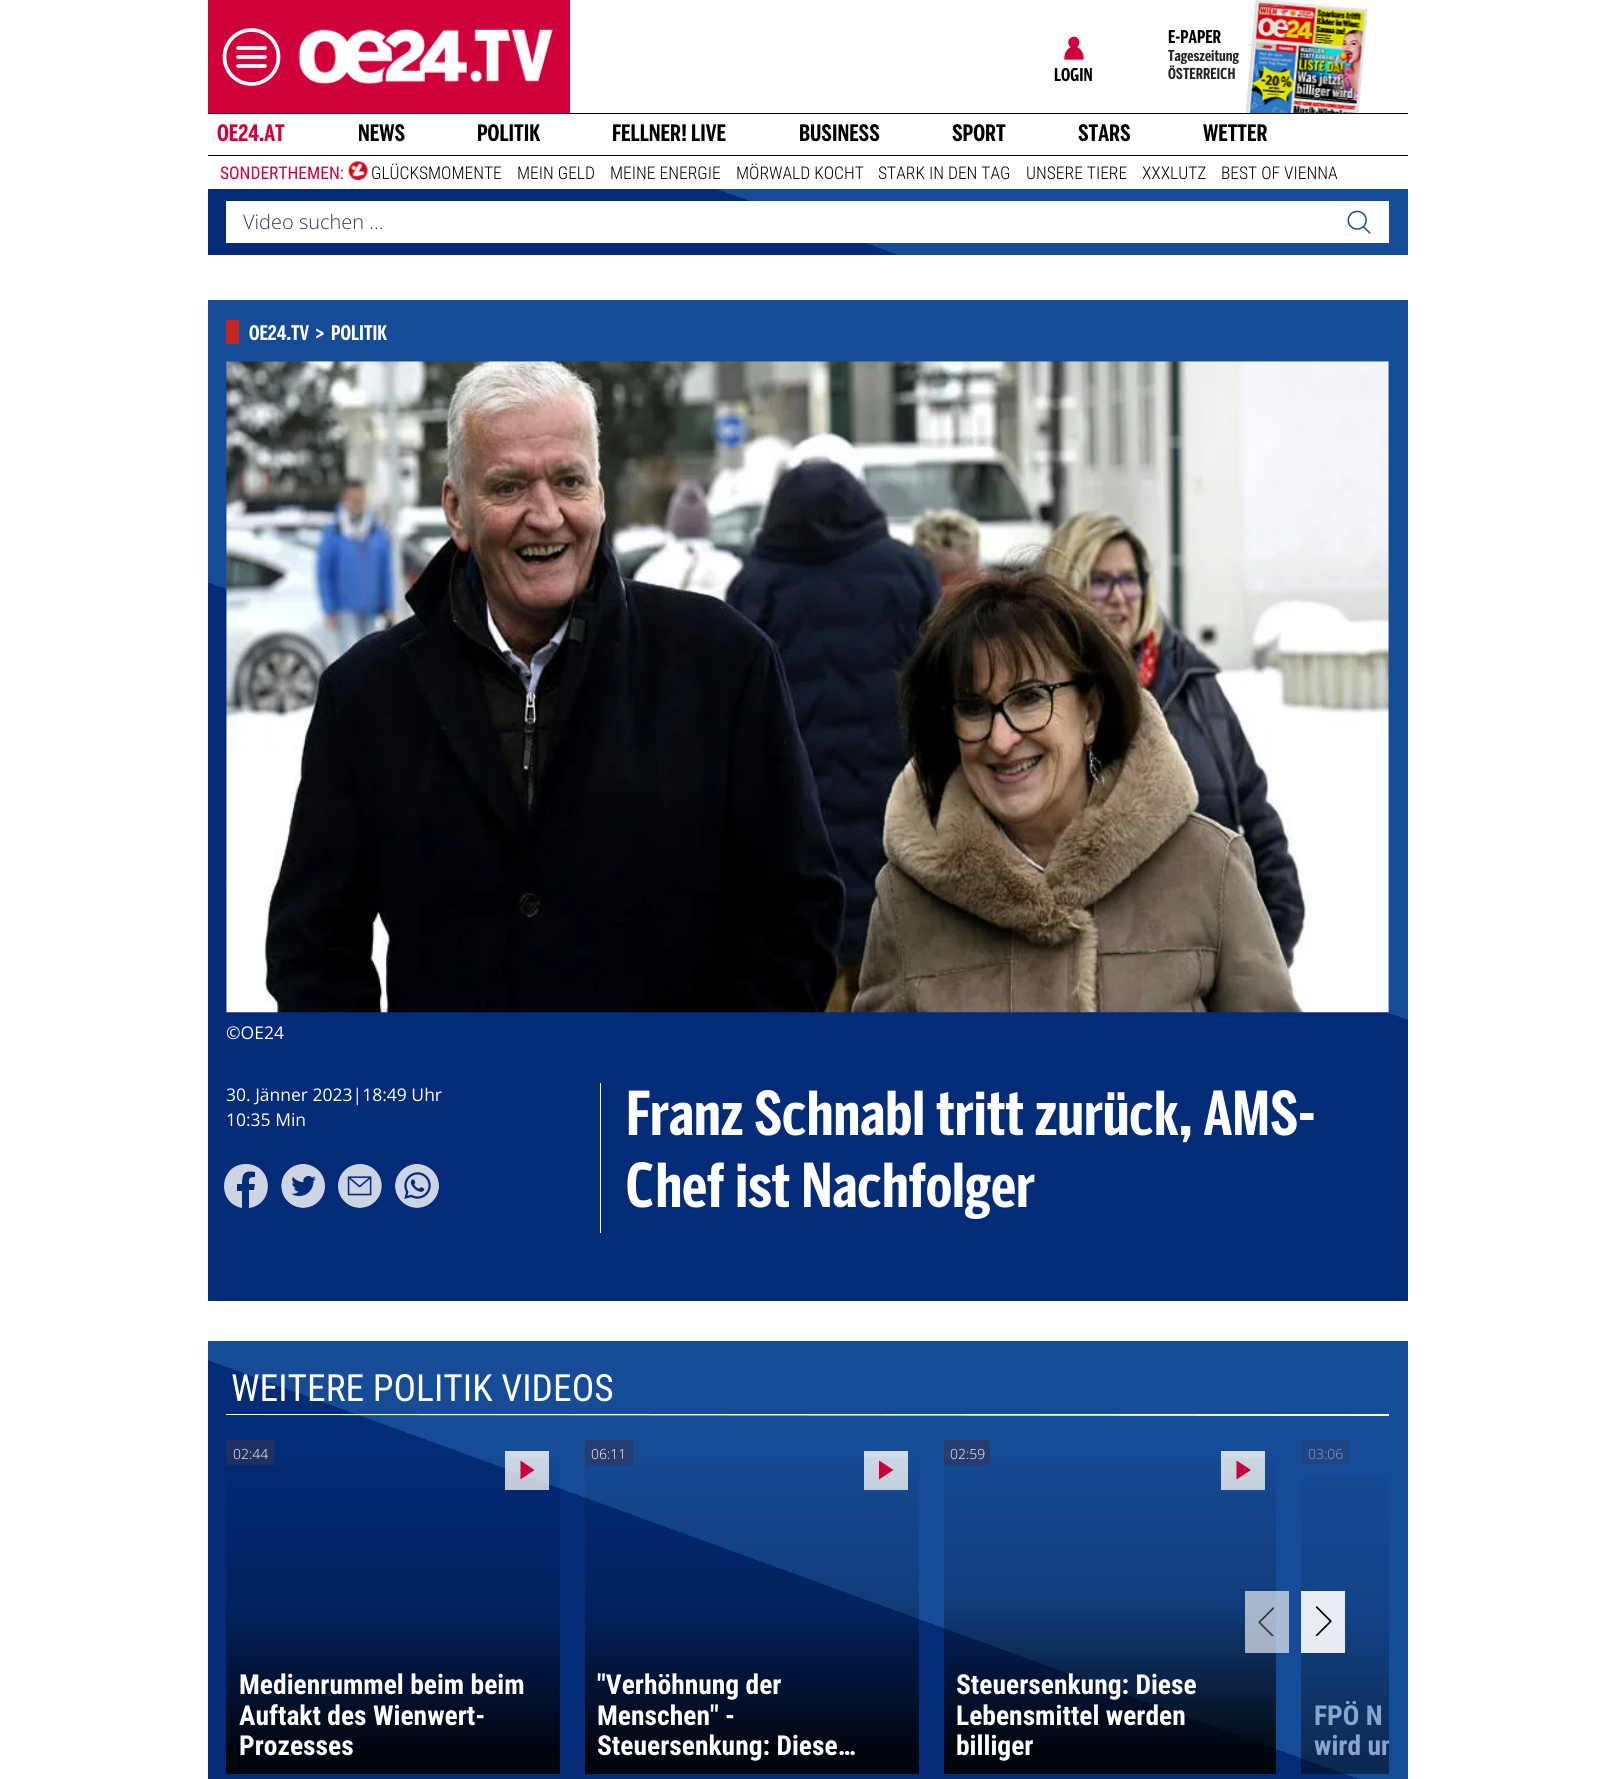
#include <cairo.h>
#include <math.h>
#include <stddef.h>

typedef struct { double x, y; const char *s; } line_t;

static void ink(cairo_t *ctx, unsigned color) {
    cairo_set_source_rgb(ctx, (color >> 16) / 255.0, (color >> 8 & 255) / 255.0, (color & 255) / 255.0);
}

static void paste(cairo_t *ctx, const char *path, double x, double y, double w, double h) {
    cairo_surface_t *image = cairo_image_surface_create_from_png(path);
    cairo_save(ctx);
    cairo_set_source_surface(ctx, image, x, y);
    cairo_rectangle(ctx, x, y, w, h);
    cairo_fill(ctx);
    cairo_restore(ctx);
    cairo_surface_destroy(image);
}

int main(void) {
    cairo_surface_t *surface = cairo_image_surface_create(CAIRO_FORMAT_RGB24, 1615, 1779);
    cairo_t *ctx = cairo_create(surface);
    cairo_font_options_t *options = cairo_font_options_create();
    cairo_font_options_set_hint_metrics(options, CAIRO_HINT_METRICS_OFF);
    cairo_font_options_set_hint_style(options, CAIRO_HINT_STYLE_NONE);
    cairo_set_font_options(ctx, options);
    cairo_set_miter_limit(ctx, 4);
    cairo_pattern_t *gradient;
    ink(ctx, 0xFFFFFF);
    cairo_paint(ctx);
    ink(ctx, 0xD0013A);
    cairo_rectangle(ctx, 208, 0, 362, 113);
    cairo_fill(ctx);
    cairo_arc(ctx, 251.5, 57, 27, 0, 2 * M_PI);
    ink(ctx, 0xFFFFFF);
    cairo_set_line_width(ctx, 3.7);
    cairo_stroke(ctx);
    cairo_new_path(ctx);
    cairo_move_to(ctx, 238, 48);
    cairo_line_to(ctx, 265, 48);
    cairo_move_to(ctx, 238, 57);
    cairo_line_to(ctx, 265, 57);
    cairo_move_to(ctx, 238, 66);
    cairo_line_to(ctx, 265, 66);
    cairo_set_line_cap(ctx, CAIRO_LINE_CAP_ROUND);
    cairo_stroke(ctx);
    paste(ctx, "media/1.png", 298, 29, 255, 55);
    paste(ctx, "media/2.png", 1064, 36, 20, 24);
    cairo_select_font_face(ctx, "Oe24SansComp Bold", CAIRO_FONT_SLANT_NORMAL, CAIRO_FONT_WEIGHT_BOLD);
    cairo_set_font_size(ctx, 17.5);
    ink(ctx, 0x000000);
    cairo_move_to(ctx, 1054, 81);
    cairo_show_text(ctx, "LOGIN");
    cairo_move_to(ctx, 1168, 43);
    cairo_show_text(ctx, "E-PAPER");
    cairo_set_font_size(ctx, 15);
    ink(ctx, 0x242424);
    cairo_move_to(ctx, 1168, 61);
    cairo_show_text(ctx, "Tageszeitung");
    cairo_move_to(ctx, 1168, 79);
    cairo_show_text(ctx, "ÖSTERREICH");
    paste(ctx, "media/3.png", 1245, 0, 123, 113);
    ink(ctx, 0x000000);
    cairo_rectangle(ctx, 208, 113, 1200, 1);
    cairo_fill(ctx);
    cairo_rectangle(ctx, 208, 155, 1200, 1);
    cairo_fill(ctx);
    cairo_set_font_size(ctx, 22.5);
    ink(ctx, 0xD0013A);
    cairo_move_to(ctx, 217, 141);
    cairo_show_text(ctx, "OE24.AT");
    ink(ctx, 0x000000);
    {
        static const line_t items[] = {
            {358, 141, "NEWS"},
            {477, 141, "POLITIK"},
            {612, 141, "FELLNER! LIVE"},
            {799, 141, "BUSINESS"},
            {952, 141, "SPORT"},
            {1078, 141, "STARS"},
            {1203, 141, "WETTER"},
        };
        for (size_t i = 0; i < sizeof items / sizeof *items; i++) {
            cairo_move_to(ctx, items[i].x, items[i].y);
            cairo_show_text(ctx, items[i].s);
        }
    }
    cairo_select_font_face(ctx, "Roboto Condensed", CAIRO_FONT_SLANT_NORMAL, CAIRO_FONT_WEIGHT_NORMAL);
    cairo_set_font_size(ctx, 17.5);
    ink(ctx, 0xD0013A);
    cairo_move_to(ctx, 220, 179);
    cairo_show_text(ctx, "SONDERTHEMEN:");
    paste(ctx, "media/4.png", 348, 161, 20, 19);
    cairo_select_font_face(ctx, "Roboto Condensed Light", CAIRO_FONT_SLANT_NORMAL, CAIRO_FONT_WEIGHT_NORMAL);
    ink(ctx, 0x000000);
    {
        static const line_t items[] = {
            {371, 179, "GLÜCKSMOMENTE"},
            {517, 179, "MEIN GELD"},
            {610, 179, "MEINE ENERGIE"},
            {736, 179, "MÖRWALD KOCHT"},
            {878, 179, "STARK IN DEN TAG"},
            {1026, 179, "UNSERE TIERE"},
            {1142, 179, "XXXLUTZ"},
            {1221, 179, "BEST OF VIENNA"},
        };
        for (size_t i = 0; i < sizeof items / sizeof *items; i++) {
            cairo_move_to(ctx, items[i].x, items[i].y);
            cairo_show_text(ctx, items[i].s);
        }
    }
    gradient = cairo_pattern_create_linear(888, -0.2, 727, 444);
    cairo_pattern_add_color_stop_rgba(gradient, 0, 0.082, 0.294, 0.592, 1);
    cairo_pattern_add_color_stop_rgba(gradient, 0.5, 0.082, 0.294, 0.592, 1);
    cairo_pattern_add_color_stop_rgba(gradient, 0.5, 0.012, 0.169, 0.467, 1);
    cairo_pattern_add_color_stop_rgba(gradient, 1, 0.012, 0.169, 0.467, 1);
    cairo_set_source(ctx, gradient);
    cairo_pattern_destroy(gradient);
    cairo_rectangle(ctx, 208, 189, 1200, 66);
    cairo_fill(ctx);
    ink(ctx, 0xFFFFFF);
    cairo_rectangle(ctx, 226, 201, 1163, 42);
    cairo_fill(ctx);
    cairo_select_font_face(ctx, "Open Sans Light", CAIRO_FONT_SLANT_NORMAL, CAIRO_FONT_WEIGHT_NORMAL);
    cairo_set_font_size(ctx, 20);
    ink(ctx, 0x343455);
    cairo_move_to(ctx, 243, 229);
    cairo_show_text(ctx, "Video suchen ...");
    paste(ctx, "media/5.png", 1347, 210, 24, 24);
    gradient = cairo_pattern_create_linear(1039, 166, 576, 1436);
    cairo_pattern_add_color_stop_rgba(gradient, 0, 0.082, 0.294, 0.592, 1);
    cairo_pattern_add_color_stop_rgba(gradient, 0.5, 0.082, 0.294, 0.592, 1);
    cairo_pattern_add_color_stop_rgba(gradient, 0.5, 0.012, 0.169, 0.467, 1);
    cairo_pattern_add_color_stop_rgba(gradient, 1, 0.012, 0.169, 0.467, 1);
    cairo_set_source(ctx, gradient);
    cairo_pattern_destroy(gradient);
    cairo_rectangle(ctx, 208, 300, 1200, 1001);
    cairo_fill(ctx);
    ink(ctx, 0xC72626);
    cairo_rectangle(ctx, 226, 320, 13, 24);
    cairo_fill(ctx);
    cairo_select_font_face(ctx, "Oe24SansComp Bold", CAIRO_FONT_SLANT_NORMAL, CAIRO_FONT_WEIGHT_BOLD);
    ink(ctx, 0xFFFFFF);
    {
        static const line_t items[] = {
            {249, 340, "OE24.TV"},
            {315, 340, ">"},
            {331, 340, "POLITIK"},
        };
        for (size_t i = 0; i < sizeof items / sizeof *items; i++) {
            cairo_move_to(ctx, items[i].x, items[i].y);
            cairo_show_text(ctx, items[i].s);
        }
    }
    paste(ctx, "media/6.png", 226, 361, 1163, 652);
    cairo_select_font_face(ctx, "Open Sans", CAIRO_FONT_SLANT_NORMAL, CAIRO_FONT_WEIGHT_NORMAL);
    cairo_set_font_size(ctx, 17.5);
    cairo_move_to(ctx, 226, 1039);
    cairo_show_text(ctx, "©OE24");
    cairo_rectangle(ctx, 600, 1083, 1, 150);
    cairo_fill(ctx);
    cairo_move_to(ctx, 226, 1101);
    cairo_show_text(ctx, "30. Jänner 2023|18:49 Uhr");
    cairo_move_to(ctx, 226, 1126);
    cairo_show_text(ctx, "10:35 Min");
    ink(ctx, 0xCDD5E4);
    cairo_new_path(ctx);
    cairo_move_to(ctx, 246, 1164);
    cairo_curve_to(ctx, 219, 1164, 216, 1203, 242, 1208);
    cairo_line_to(ctx, 242, 1191);
    cairo_line_to(ctx, 237, 1191);
    cairo_line_to(ctx, 237, 1184);
    cairo_line_to(ctx, 242, 1184);
    cairo_curve_to(ctx, 242, 1174, 244, 1170, 255, 1172);
    cairo_line_to(ctx, 255, 1177);
    cairo_curve_to(ctx, 248, 1177, 249, 1179, 249, 1184);
    cairo_line_to(ctx, 255, 1184);
    cairo_line_to(ctx, 254, 1190);
    cairo_line_to(ctx, 249, 1190);
    cairo_line_to(ctx, 249, 1208);
    cairo_curve_to(ctx, 276, 1204, 273, 1164, 246, 1164);
    cairo_close_path(ctx);
    cairo_fill(ctx);
    paste(ctx, "media/7.png", 281, 1164, 44, 44);
    paste(ctx, "media/8.png", 338, 1164, 44, 44);
    paste(ctx, "media/9.png", 395, 1164, 44, 44);
    cairo_select_font_face(ctx, "Oe24SansComp Bold", CAIRO_FONT_SLANT_NORMAL, CAIRO_FONT_WEIGHT_BOLD);
    cairo_set_font_size(ctx, 60);
    ink(ctx, 0xFFFFFF);
    cairo_move_to(ctx, 626, 1135);
    cairo_show_text(ctx, "Franz Schnabl tritt zurück, AMS-");
    cairo_move_to(ctx, 626, 1207);
    cairo_show_text(ctx, "Chef ist Nachfolger");
    gradient = cairo_pattern_create_linear(954, 1176, 661, 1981);
    cairo_pattern_add_color_stop_rgba(gradient, 0, 0.082, 0.294, 0.592, 1);
    cairo_pattern_add_color_stop_rgba(gradient, 0.5, 0.082, 0.294, 0.592, 1);
    cairo_pattern_add_color_stop_rgba(gradient, 0.5, 0.012, 0.169, 0.467, 1);
    cairo_pattern_add_color_stop_rgba(gradient, 1, 0.012, 0.169, 0.467, 1);
    cairo_set_source(ctx, gradient);
    cairo_pattern_destroy(gradient);
    cairo_rectangle(ctx, 208, 1341, 1200, 438);
    cairo_fill(ctx);
    gradient = cairo_pattern_create_linear(954, 1176, 661, 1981);
    cairo_pattern_add_color_stop_rgba(gradient, 0, 0.816, 0.859, 0.918, 1);
    cairo_pattern_add_color_stop_rgba(gradient, 0.5, 0.816, 0.859, 0.918, 1);
    cairo_pattern_add_color_stop_rgba(gradient, 0.5, 0.804, 0.835, 0.894, 1);
    cairo_pattern_add_color_stop_rgba(gradient, 1, 0.804, 0.835, 0.894, 1);
    cairo_set_source(ctx, gradient);
    cairo_pattern_destroy(gradient);
    cairo_rectangle(ctx, 505, 1451, 44, 39);
    cairo_fill(ctx);
    ink(ctx, 0xFFFFFF);
    cairo_new_path(ctx);
    cairo_move_to(ctx, 226, 1414);
    cairo_line_to(ctx, 1389, 1414);
    cairo_line_to(ctx, 1389, 1416);
    cairo_line_to(ctx, 226, 1415);
    cairo_close_path(ctx);
    cairo_fill(ctx);
    cairo_select_font_face(ctx, "Roboto Condensed", CAIRO_FONT_SLANT_NORMAL, CAIRO_FONT_WEIGHT_NORMAL);
    cairo_set_font_size(ctx, 37.5);
    cairo_move_to(ctx, 231, 1401);
    cairo_show_text(ctx, "WEITERE POLITIK VIDEOS");
    ink(ctx, 0x203063);
    cairo_rectangle(ctx, 226, 1440, 48, 25);
    cairo_fill(ctx);
    cairo_select_font_face(ctx, "Open Sans Light", CAIRO_FONT_SLANT_NORMAL, CAIRO_FONT_WEIGHT_NORMAL);
    cairo_set_font_size(ctx, 14);
    ink(ctx, 0xFFFFFF);
    cairo_move_to(ctx, 233, 1459);
    cairo_show_text(ctx, "02:44");
    ink(ctx, 0xD0013A);
    cairo_set_fill_rule(ctx, CAIRO_FILL_RULE_EVEN_ODD);
    cairo_new_path(ctx);
    cairo_move_to(ctx, 534.5, 1470);
    cairo_line_to(ctx, 520.5, 1479.5);
    cairo_line_to(ctx, 520.5, 1460.5);
    cairo_close_path(ctx);
    cairo_fill(ctx);
    gradient = cairo_pattern_create_linear(393, 1440, 393, 1774);
    cairo_pattern_add_color_stop_rgba(gradient, 0, 0, 0, 0, 0);
    cairo_pattern_add_color_stop_rgba(gradient, 0.5, 0, 0, 0, 0.2);
    cairo_pattern_add_color_stop_rgba(gradient, 0.95, 0, 0, 0, 0.9);
    cairo_set_source(ctx, gradient);
    cairo_pattern_destroy(gradient);
    cairo_rectangle(ctx, 226, 1458, 334, 316);
    cairo_fill(ctx);
    cairo_select_font_face(ctx, "Roboto Condensed", CAIRO_FONT_SLANT_NORMAL, CAIRO_FONT_WEIGHT_BOLD);
    cairo_set_font_size(ctx, 27.5);
    ink(ctx, 0xFFFFFF);
    {
        static const line_t items[] = {
            {239, 1694, "Medienrummel beim beim"},
            {239, 1725, "Auftakt des Wienwert-"},
            {239, 1755, "Prozesses"},
        };
        for (size_t i = 0; i < sizeof items / sizeof *items; i++) {
            cairo_move_to(ctx, items[i].x, items[i].y);
            cairo_show_text(ctx, items[i].s);
        }
    }
    ink(ctx, 0x283D6F);
    cairo_rectangle(ctx, 585, 1440, 48, 25);
    cairo_fill(ctx);
    cairo_select_font_face(ctx, "Open Sans Light", CAIRO_FONT_SLANT_NORMAL, CAIRO_FONT_WEIGHT_NORMAL);
    cairo_set_font_size(ctx, 14);
    ink(ctx, 0xFFFFFF);
    cairo_move_to(ctx, 591, 1459);
    cairo_show_text(ctx, "06:11");
    ink(ctx, 0xD0DBEA);
    cairo_rectangle(ctx, 864, 1451, 44, 39);
    cairo_fill(ctx);
    ink(ctx, 0xD0013A);
    cairo_new_path(ctx);
    cairo_move_to(ctx, 893.5, 1470);
    cairo_line_to(ctx, 879, 1479.5);
    cairo_line_to(ctx, 879, 1460.5);
    cairo_close_path(ctx);
    cairo_fill(ctx);
    gradient = cairo_pattern_create_linear(752, 1440, 752, 1774);
    cairo_pattern_add_color_stop_rgba(gradient, 0, 0, 0, 0, 0);
    cairo_pattern_add_color_stop_rgba(gradient, 0.5, 0, 0, 0, 0.2);
    cairo_pattern_add_color_stop_rgba(gradient, 0.95, 0, 0, 0, 0.9);
    cairo_set_source(ctx, gradient);
    cairo_pattern_destroy(gradient);
    cairo_rectangle(ctx, 585, 1458, 334, 316);
    cairo_fill(ctx);
    cairo_select_font_face(ctx, "Roboto Condensed", CAIRO_FONT_SLANT_NORMAL, CAIRO_FONT_WEIGHT_BOLD);
    cairo_set_font_size(ctx, 27.5);
    ink(ctx, 0xFFFFFF);
    {
        static const line_t items[] = {
            {597, 1694, "\"Verhöhnung der"},
            {597, 1725, "Menschen\" -"},
            {597, 1755, "Steuersenkung: Diese…"},
        };
        for (size_t i = 0; i < sizeof items / sizeof *items; i++) {
            cairo_move_to(ctx, items[i].x, items[i].y);
            cairo_show_text(ctx, items[i].s);
        }
    }
    ink(ctx, 0x283D6F);
    cairo_rectangle(ctx, 944, 1440, 46, 25);
    cairo_fill(ctx);
    cairo_select_font_face(ctx, "Open Sans Light", CAIRO_FONT_SLANT_NORMAL, CAIRO_FONT_WEIGHT_NORMAL);
    cairo_set_font_size(ctx, 14);
    ink(ctx, 0xFFFFFF);
    cairo_move_to(ctx, 950, 1459);
    cairo_show_text(ctx, "02:59");
    ink(ctx, 0xD0DBEA);
    cairo_rectangle(ctx, 1221, 1451, 44, 39);
    cairo_fill(ctx);
    ink(ctx, 0xD0013A);
    cairo_new_path(ctx);
    cairo_move_to(ctx, 1251, 1470);
    cairo_line_to(ctx, 1236.5, 1479.5);
    cairo_line_to(ctx, 1236.5, 1460.5);
    cairo_close_path(ctx);
    cairo_fill(ctx);
    gradient = cairo_pattern_create_linear(1110, 1440, 1110, 1774);
    cairo_pattern_add_color_stop_rgba(gradient, 0, 0, 0, 0, 0);
    cairo_pattern_add_color_stop_rgba(gradient, 0.5, 0, 0, 0, 0.2);
    cairo_pattern_add_color_stop_rgba(gradient, 0.95, 0, 0, 0, 0.9);
    cairo_set_source(ctx, gradient);
    cairo_pattern_destroy(gradient);
    cairo_rectangle(ctx, 944, 1458, 332, 316);
    cairo_fill(ctx);
    cairo_select_font_face(ctx, "Roboto Condensed", CAIRO_FONT_SLANT_NORMAL, CAIRO_FONT_WEIGHT_BOLD);
    cairo_set_font_size(ctx, 27.5);
    ink(ctx, 0xFFFFFF);
    {
        static const line_t items[] = {
            {956, 1694, "Steuersenkung: Diese"},
            {956, 1725, "Lebensmittel werden"},
            {956, 1755, "billiger"},
        };
        for (size_t i = 0; i < sizeof items / sizeof *items; i++) {
            cairo_move_to(ctx, items[i].x, items[i].y);
            cairo_show_text(ctx, items[i].s);
        }
    }
    ink(ctx, 0x1F4483);
    cairo_rectangle(ctx, 1301, 1440, 48, 25);
    cairo_fill(ctx);
    cairo_select_font_face(ctx, "Open Sans Light", CAIRO_FONT_SLANT_NORMAL, CAIRO_FONT_WEIGHT_NORMAL);
    cairo_set_font_size(ctx, 14);
    ink(ctx, 0x8AA5CB);
    cairo_move_to(ctx, 1308, 1459);
    cairo_show_text(ctx, "03:06");
    gradient = cairo_pattern_create_linear(1468, 1440, 1468, 1774);
    cairo_pattern_add_color_stop_rgba(gradient, 0, 0, 0, 0, 0);
    cairo_pattern_add_color_stop_rgba(gradient, 0.5, 0, 0, 0, 0.1);
    cairo_pattern_add_color_stop_rgba(gradient, 0.95, 0, 0, 0, 0.45);
    cairo_set_source(ctx, gradient);
    cairo_pattern_destroy(gradient);
    cairo_rectangle(ctx, 1301, 1476, 88, 298);
    cairo_fill(ctx);
    cairo_save(ctx);
    cairo_set_fill_rule(ctx, CAIRO_FILL_RULE_WINDING);
    cairo_rectangle(ctx, 1301, 1701, 88, 60);
    cairo_clip(ctx);
    cairo_select_font_face(ctx, "Roboto Condensed", CAIRO_FONT_SLANT_NORMAL, CAIRO_FONT_WEIGHT_BOLD);
    cairo_set_font_size(ctx, 27.5);
    ink(ctx, 0x8AA5CB);
    cairo_move_to(ctx, 1314, 1725);
    cairo_show_text(ctx, "FPÖ N");
    cairo_move_to(ctx, 1314, 1755);
    cairo_show_text(ctx, "wird un");
    cairo_restore(ctx);
    cairo_set_source_rgba(ctx, 1, 1, 1, 0.63);
    cairo_rectangle(ctx, 1245, 1591, 44, 62);
    cairo_fill(ctx);
    paste(ctx, "media/10.png", 1258, 1607, 17, 29);
    cairo_set_source_rgba(ctx, 1, 1, 1, 0.9);
    cairo_rectangle(ctx, 1301, 1591, 44, 62);
    cairo_fill(ctx);
    paste(ctx, "media/11.png", 1315, 1606, 17, 30);
    cairo_surface_write_to_png(surface, "image.png");
    cairo_font_options_destroy(options);
    cairo_destroy(ctx);
    cairo_surface_destroy(surface);
    return 0;
}
